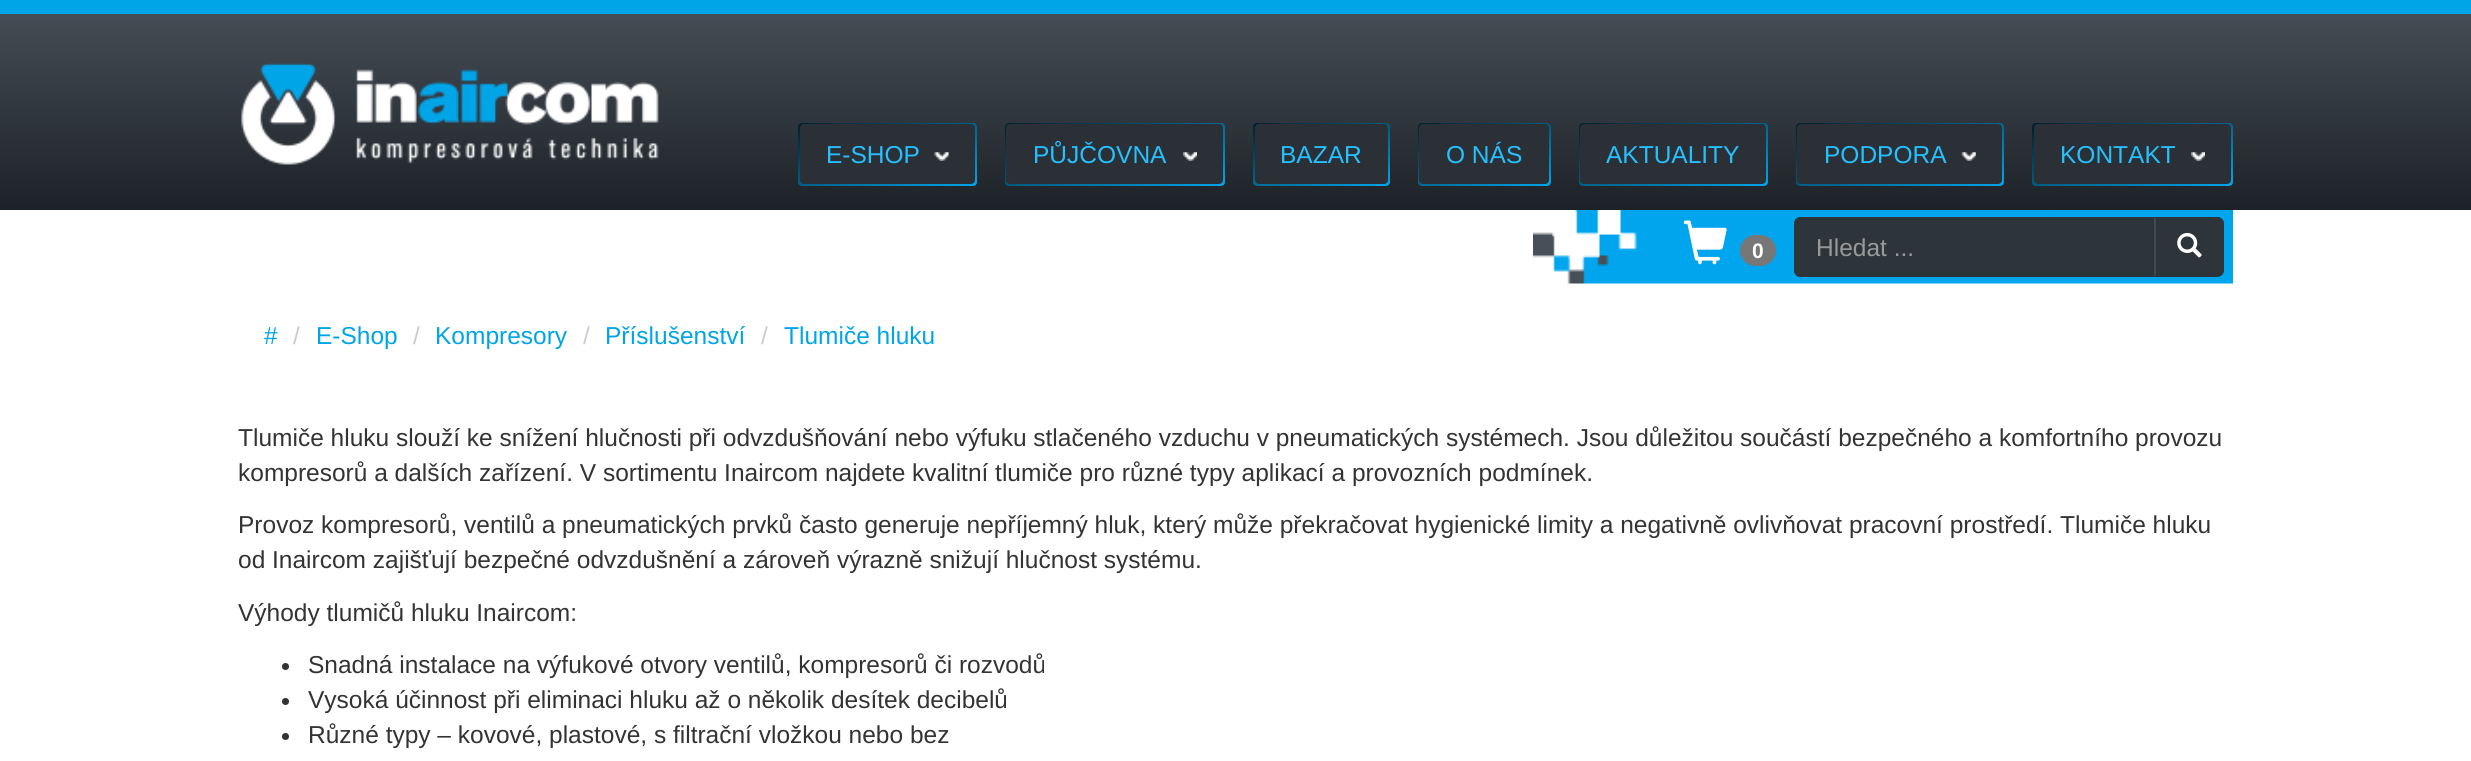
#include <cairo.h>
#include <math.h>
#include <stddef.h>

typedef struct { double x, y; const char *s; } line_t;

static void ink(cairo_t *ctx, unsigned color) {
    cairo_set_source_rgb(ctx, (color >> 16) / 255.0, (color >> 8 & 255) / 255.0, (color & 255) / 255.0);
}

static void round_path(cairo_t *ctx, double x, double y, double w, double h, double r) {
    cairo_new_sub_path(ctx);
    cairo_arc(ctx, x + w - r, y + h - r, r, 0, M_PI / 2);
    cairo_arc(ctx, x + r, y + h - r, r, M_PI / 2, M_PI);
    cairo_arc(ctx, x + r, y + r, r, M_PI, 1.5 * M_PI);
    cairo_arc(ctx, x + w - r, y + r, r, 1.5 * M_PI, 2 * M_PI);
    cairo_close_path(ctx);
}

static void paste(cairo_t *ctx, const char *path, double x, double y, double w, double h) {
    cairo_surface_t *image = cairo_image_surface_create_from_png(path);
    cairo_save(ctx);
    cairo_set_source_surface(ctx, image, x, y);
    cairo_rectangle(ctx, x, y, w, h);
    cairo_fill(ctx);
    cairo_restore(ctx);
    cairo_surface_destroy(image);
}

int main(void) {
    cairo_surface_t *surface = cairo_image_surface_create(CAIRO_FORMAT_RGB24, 2471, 761);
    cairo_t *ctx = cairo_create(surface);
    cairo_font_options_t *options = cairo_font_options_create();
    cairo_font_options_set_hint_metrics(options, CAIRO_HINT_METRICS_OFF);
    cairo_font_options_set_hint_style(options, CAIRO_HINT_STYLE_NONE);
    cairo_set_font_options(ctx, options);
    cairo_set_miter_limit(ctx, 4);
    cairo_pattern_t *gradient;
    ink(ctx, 0xFFFFFF);
    cairo_paint(ctx);
    gradient = cairo_pattern_create_linear(1236, 14, 1236, 210);
    cairo_pattern_add_color_stop_rgba(gradient, 0, 0.267, 0.298, 0.333, 1);
    cairo_pattern_add_color_stop_rgba(gradient, 1, 0.114, 0.133, 0.153, 1);
    cairo_set_source(ctx, gradient);
    cairo_pattern_destroy(gradient);
    cairo_rectangle(ctx, 0, 14, 2471, 196);
    cairo_fill(ctx);
    ink(ctx, 0x00A5E8);
    cairo_rectangle(ctx, 0, 0, 2471, 14);
    cairo_fill(ctx);
    paste(ctx, "media/1.png", 241, 63, 418, 102);
    gradient = cairo_pattern_create_linear(867, 98, 908, 210);
    cairo_pattern_add_color_stop_rgba(gradient, 0, 0, 0.118, 0.169, 1);
    cairo_pattern_add_color_stop_rgba(gradient, 1, 0, 0.647, 0.914, 1);
    cairo_set_source(ctx, gradient);
    cairo_pattern_destroy(gradient);
    round_path(ctx, 798, 123, 179, 63, 4);
    cairo_fill(ctx);
    ink(ctx, 0x2A3036);
    round_path(ctx, 800, 124, 175, 60, 4);
    cairo_fill(ctx);
    cairo_select_font_face(ctx, "Liberation Sans", CAIRO_FONT_SLANT_NORMAL, CAIRO_FONT_WEIGHT_NORMAL);
    cairo_set_font_size(ctx, 24.5);
    ink(ctx, 0x26C0FF);
    cairo_move_to(ctx, 826, 163);
    cairo_show_text(ctx, "E-SHOP");
    paste(ctx, "media/2.png", 934, 152, 15, 9);
    gradient = cairo_pattern_create_linear(1092, 91, 1138, 217);
    cairo_pattern_add_color_stop_rgba(gradient, 0, 0, 0.118, 0.169, 1);
    cairo_pattern_add_color_stop_rgba(gradient, 1, 0, 0.647, 0.914, 1);
    cairo_set_source(ctx, gradient);
    cairo_pattern_destroy(gradient);
    round_path(ctx, 1005, 123, 220, 63, 4);
    cairo_fill(ctx);
    ink(ctx, 0x2A3036);
    round_path(ctx, 1006, 124, 217, 60, 4);
    cairo_fill(ctx);
    ink(ctx, 0x26C0FF);
    cairo_move_to(ctx, 1033, 163);
    cairo_show_text(ctx, "PŮJČOVNA");
    paste(ctx, "media/3.png", 1183, 152, 14, 9);
    gradient = cairo_pattern_create_linear(1303, 104, 1339, 204);
    cairo_pattern_add_color_stop_rgba(gradient, 0, 0, 0.118, 0.169, 1);
    cairo_pattern_add_color_stop_rgba(gradient, 1, 0, 0.647, 0.914, 1);
    cairo_set_source(ctx, gradient);
    cairo_pattern_destroy(gradient);
    round_path(ctx, 1253, 123, 137, 63, 4);
    cairo_fill(ctx);
    ink(ctx, 0x2A3036);
    round_path(ctx, 1255, 124, 133, 60, 4);
    cairo_fill(ctx);
    ink(ctx, 0x26C0FF);
    cairo_move_to(ctx, 1280, 163);
    cairo_show_text(ctx, "BAZAR");
    gradient = cairo_pattern_create_linear(1466, 105, 1502, 203);
    cairo_pattern_add_color_stop_rgba(gradient, 0, 0, 0.118, 0.169, 1);
    cairo_pattern_add_color_stop_rgba(gradient, 1, 0, 0.647, 0.914, 1);
    cairo_set_source(ctx, gradient);
    cairo_pattern_destroy(gradient);
    round_path(ctx, 1418, 123, 133, 63, 4);
    cairo_fill(ctx);
    ink(ctx, 0x2A3036);
    round_path(ctx, 1419, 124, 130, 60, 4);
    cairo_fill(ctx);
    ink(ctx, 0x26C0FF);
    cairo_move_to(ctx, 1446, 163);
    cairo_show_text(ctx, "O NÁS");
    gradient = cairo_pattern_create_linear(1652, 96, 1694, 212);
    cairo_pattern_add_color_stop_rgba(gradient, 0, 0, 0.118, 0.169, 1);
    cairo_pattern_add_color_stop_rgba(gradient, 1, 0, 0.647, 0.914, 1);
    cairo_set_source(ctx, gradient);
    cairo_pattern_destroy(gradient);
    round_path(ctx, 1579, 123, 189, 63, 4);
    cairo_fill(ctx);
    ink(ctx, 0x2A3036);
    round_path(ctx, 1580, 124, 186, 60, 4);
    cairo_fill(ctx);
    ink(ctx, 0x26C0FF);
    cairo_move_to(ctx, 1606, 163);
    cairo_show_text(ctx, "AKTUALITY");
    gradient = cairo_pattern_create_linear(1877, 93, 1922, 215);
    cairo_pattern_add_color_stop_rgba(gradient, 0, 0, 0.118, 0.169, 1);
    cairo_pattern_add_color_stop_rgba(gradient, 1, 0, 0.647, 0.914, 1);
    cairo_set_source(ctx, gradient);
    cairo_pattern_destroy(gradient);
    round_path(ctx, 1796, 123, 208, 63, 4);
    cairo_fill(ctx);
    ink(ctx, 0x2A3036);
    round_path(ctx, 1797, 124, 205, 60, 4);
    cairo_fill(ctx);
    ink(ctx, 0x26C0FF);
    cairo_move_to(ctx, 1824, 163);
    cairo_show_text(ctx, "PODPORA");
    paste(ctx, "media/4.png", 1961, 152, 15, 9);
    gradient = cairo_pattern_create_linear(2110, 94, 2154, 214);
    cairo_pattern_add_color_stop_rgba(gradient, 0, 0, 0.118, 0.169, 1);
    cairo_pattern_add_color_stop_rgba(gradient, 1, 0, 0.647, 0.914, 1);
    cairo_set_source(ctx, gradient);
    cairo_pattern_destroy(gradient);
    round_path(ctx, 2032, 123, 201, 63, 4);
    cairo_fill(ctx);
    ink(ctx, 0x2A3036);
    round_path(ctx, 2034, 124, 197, 60, 4);
    cairo_fill(ctx);
    ink(ctx, 0x26C0FF);
    cairo_move_to(ctx, 2060, 163);
    cairo_show_text(ctx, "KONTAKT");
    paste(ctx, "media/3.png", 2191, 152, 14, 9);
    paste(ctx, "media/5.png", 1533, 210, 700, 74);
    paste(ctx, "media/6.png", 1683, 220, 44, 45);
    ink(ctx, 0x777777);
    round_path(ctx, 1740, 235, 36, 31, 15.5);
    cairo_fill(ctx);
    cairo_select_font_face(ctx, "Liberation Sans", CAIRO_FONT_SLANT_NORMAL, CAIRO_FONT_WEIGHT_BOLD);
    cairo_set_font_size(ctx, 21);
    ink(ctx, 0xFFFFFF);
    cairo_move_to(ctx, 1752, 258);
    cairo_show_text(ctx, "0");
    ink(ctx, 0x2D353B);
    cairo_new_path(ctx);
    cairo_move_to(ctx, 1801, 217);
    cairo_line_to(ctx, 2156, 217);
    cairo_line_to(ctx, 2156, 277);
    cairo_line_to(ctx, 1801, 277);
    cairo_curve_to(ctx, 1797, 277, 1794, 274, 1794, 270);
    cairo_line_to(ctx, 1794, 224);
    cairo_curve_to(ctx, 1794, 220, 1797, 217, 1801, 217);
    cairo_close_path(ctx);
    cairo_fill(ctx);
    ink(ctx, 0x2A3137);
    cairo_new_path(ctx);
    cairo_move_to(ctx, 1801, 220);
    cairo_line_to(ctx, 2154, 220);
    cairo_line_to(ctx, 2154, 219);
    cairo_line_to(ctx, 1801, 219);
    cairo_curve_to(ctx, 1797, 219, 1796, 223, 1796, 226);
    cairo_curve_to(ctx, 1796, 223, 1798, 220, 1801, 220);
    cairo_close_path(ctx);
    cairo_fill(ctx);
    cairo_new_path(ctx);
    cairo_move_to(ctx, 1801, 218);
    cairo_line_to(ctx, 2155, 218);
    cairo_line_to(ctx, 2155, 276);
    cairo_line_to(ctx, 1801, 276);
    cairo_curve_to(ctx, 1797.5, 276, 1795, 273.5, 1795, 270);
    cairo_line_to(ctx, 1795, 224);
    cairo_curve_to(ctx, 1795, 220.5, 1797.5, 218, 1801, 218);
    cairo_close_path(ctx);
    ink(ctx, 0x2D353B);
    cairo_stroke(ctx);
    cairo_select_font_face(ctx, "Liberation Sans", CAIRO_FONT_SLANT_NORMAL, CAIRO_FONT_WEIGHT_NORMAL);
    cairo_set_font_size(ctx, 24.5);
    ink(ctx, 0x999999);
    cairo_move_to(ctx, 1816, 256);
    cairo_show_text(ctx, "Hledat ...");
    ink(ctx, 0x2D353B);
    cairo_new_path(ctx);
    cairo_move_to(ctx, 2154, 217);
    cairo_line_to(ctx, 2217, 217);
    cairo_curve_to(ctx, 2221, 217, 2224, 220, 2224, 224);
    cairo_line_to(ctx, 2224, 270);
    cairo_curve_to(ctx, 2224, 274, 2221, 277, 2217, 277);
    cairo_line_to(ctx, 2154, 277);
    cairo_close_path(ctx);
    cairo_fill(ctx);
    cairo_new_path(ctx);
    cairo_move_to(ctx, 2154, 217);
    cairo_line_to(ctx, 2156, 219);
    cairo_line_to(ctx, 2217, 219);
    cairo_curve_to(ctx, 2219, 219, 2220, 220, 2221, 221);
    cairo_line_to(ctx, 2222, 219);
    cairo_curve_to(ctx, 2221, 218, 2219, 217, 2217, 217);
    cairo_close_path(ctx);
    cairo_fill(ctx);
    cairo_new_path(ctx);
    cairo_move_to(ctx, 2222, 219);
    cairo_curve_to(ctx, 2223, 220, 2224, 222, 2224, 224);
    cairo_line_to(ctx, 2224, 270);
    cairo_curve_to(ctx, 2224, 272, 2223, 273, 2222, 274);
    cairo_line_to(ctx, 2221, 273);
    cairo_curve_to(ctx, 2222, 272, 2222, 271, 2222, 270);
    cairo_line_to(ctx, 2222, 224);
    cairo_curve_to(ctx, 2222, 223, 2222, 221, 2221, 221);
    cairo_close_path(ctx);
    cairo_fill(ctx);
    ink(ctx, 0x3D4954);
    cairo_new_path(ctx);
    cairo_move_to(ctx, 2156, 219);
    cairo_line_to(ctx, 2156, 275);
    cairo_line_to(ctx, 2154, 276);
    cairo_line_to(ctx, 2154, 217);
    cairo_close_path(ctx);
    cairo_fill(ctx);
    paste(ctx, "media/7.png", 2177, 232, 25, 26);
    ink(ctx, 0x00A5E8);
    cairo_move_to(ctx, 264, 344);
    cairo_show_text(ctx, "#");
    ink(ctx, 0xCCCCCC);
    cairo_move_to(ctx, 293, 344);
    cairo_show_text(ctx, "/");
    ink(ctx, 0x00A5E8);
    cairo_move_to(ctx, 316, 344);
    cairo_show_text(ctx, "E-Shop");
    ink(ctx, 0xCCCCCC);
    cairo_move_to(ctx, 413, 344);
    cairo_show_text(ctx, "/");
    ink(ctx, 0x00A5E8);
    cairo_move_to(ctx, 435, 344);
    cairo_show_text(ctx, "Kompresory");
    ink(ctx, 0xCCCCCC);
    cairo_move_to(ctx, 583, 344);
    cairo_show_text(ctx, "/");
    ink(ctx, 0x00A5E8);
    cairo_move_to(ctx, 605, 344);
    cairo_show_text(ctx, "Příslušenství");
    ink(ctx, 0xCCCCCC);
    cairo_move_to(ctx, 761, 344);
    cairo_show_text(ctx, "/");
    ink(ctx, 0x00A5E8);
    cairo_move_to(ctx, 784, 344);
    cairo_show_text(ctx, "Tlumiče hluku");
    ink(ctx, 0x333333);
    {
        static const line_t items[] = {
            {238, 446, "Tlumiče hluku slouží ke snížení hlučnosti při odvzdušňování nebo výfuku stlačeného vzduchu v pneumatických systémech. Jsou důležitou součástí bezpečného a komfortního provozu"},
            {238, 481, "kompresorů a dalších zařízení. V sortimentu Inaircom najdete kvalitní tlumiče pro různé typy aplikací a provozních podmínek."},
            {238, 533, "Provoz kompresorů, ventilů a pneumatických prvků často generuje nepříjemný hluk, který může překračovat hygienické limity a negativně ovlivňovat pracovní prostředí. Tlumiče hluku"},
            {238, 568, "od Inaircom zajišťují bezpečné odvzdušnění a zároveň výrazně snižují hlučnost systému."},
            {238, 621, "Výhody tlumičů hluku Inaircom:"},
        };
        for (size_t i = 0; i < sizeof items / sizeof *items; i++) {
            cairo_move_to(ctx, items[i].x, items[i].y);
            cairo_show_text(ctx, items[i].s);
        }
    }
    cairo_new_path(ctx);
    cairo_arc(ctx, 285.5, 666.5, 3.5, 0, 2 * M_PI);
    cairo_fill(ctx);
    cairo_move_to(ctx, 308, 673);
    cairo_show_text(ctx, "Snadná instalace na výfukové otvory ventilů, kompresorů či rozvodů");
    cairo_new_path(ctx);
    cairo_arc(ctx, 285.5, 701.5, 3.5, 0, 2 * M_PI);
    cairo_fill(ctx);
    cairo_move_to(ctx, 308, 708);
    cairo_show_text(ctx, "Vysoká účinnost při eliminaci hluku až o několik desítek decibelů");
    cairo_new_path(ctx);
    cairo_arc(ctx, 285.5, 736.5, 3.5, 0, 2 * M_PI);
    cairo_fill(ctx);
    cairo_move_to(ctx, 308, 743);
    cairo_show_text(ctx, "Různé typy – kovové, plastové, s filtrační vložkou nebo bez");
    cairo_surface_write_to_png(surface, "image.png");
    cairo_font_options_destroy(options);
    cairo_destroy(ctx);
    cairo_surface_destroy(surface);
    return 0;
}
